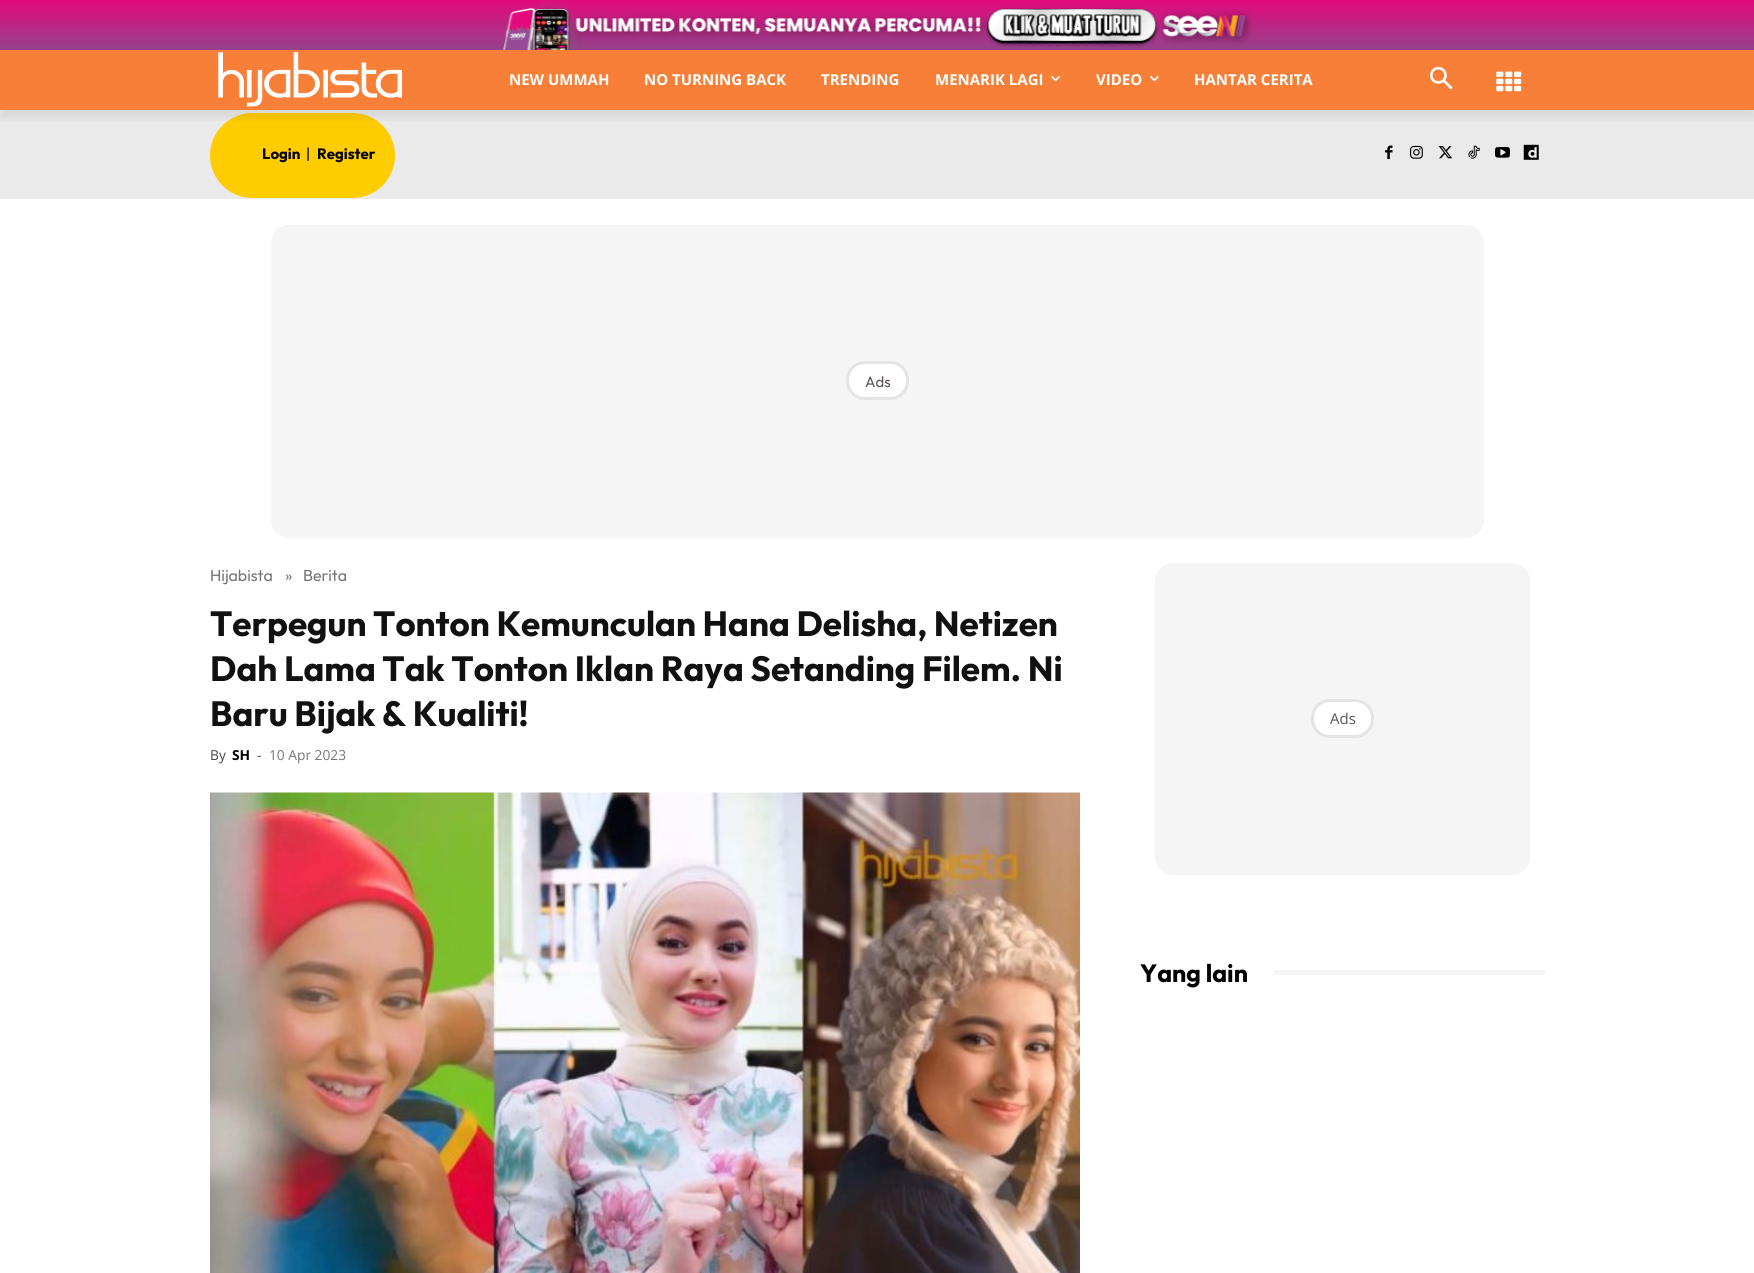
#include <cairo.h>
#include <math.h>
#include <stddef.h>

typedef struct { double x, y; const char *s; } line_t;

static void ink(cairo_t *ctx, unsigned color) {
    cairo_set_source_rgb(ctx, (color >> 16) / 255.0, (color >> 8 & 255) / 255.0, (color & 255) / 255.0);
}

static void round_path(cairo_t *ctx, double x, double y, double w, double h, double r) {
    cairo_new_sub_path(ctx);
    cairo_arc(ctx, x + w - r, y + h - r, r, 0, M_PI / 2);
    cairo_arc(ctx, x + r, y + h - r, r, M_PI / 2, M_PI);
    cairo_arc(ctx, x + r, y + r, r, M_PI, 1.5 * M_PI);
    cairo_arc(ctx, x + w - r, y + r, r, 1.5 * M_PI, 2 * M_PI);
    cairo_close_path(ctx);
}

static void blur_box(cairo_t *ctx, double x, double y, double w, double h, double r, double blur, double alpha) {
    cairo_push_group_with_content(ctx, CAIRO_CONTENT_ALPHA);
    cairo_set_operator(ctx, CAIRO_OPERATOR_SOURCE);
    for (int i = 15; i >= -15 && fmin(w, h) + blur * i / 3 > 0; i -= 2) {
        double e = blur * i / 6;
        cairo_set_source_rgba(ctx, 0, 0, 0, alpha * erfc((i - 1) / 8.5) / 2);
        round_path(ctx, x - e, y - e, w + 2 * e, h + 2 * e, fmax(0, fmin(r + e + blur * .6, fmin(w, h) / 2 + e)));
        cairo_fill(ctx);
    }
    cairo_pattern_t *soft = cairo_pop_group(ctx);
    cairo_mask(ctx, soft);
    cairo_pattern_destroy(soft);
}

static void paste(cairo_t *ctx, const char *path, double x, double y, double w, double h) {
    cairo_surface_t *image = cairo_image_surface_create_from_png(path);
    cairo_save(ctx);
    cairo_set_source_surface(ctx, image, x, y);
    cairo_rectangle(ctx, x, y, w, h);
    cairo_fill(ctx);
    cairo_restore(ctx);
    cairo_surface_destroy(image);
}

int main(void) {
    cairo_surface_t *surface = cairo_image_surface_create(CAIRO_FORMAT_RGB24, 1754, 1273);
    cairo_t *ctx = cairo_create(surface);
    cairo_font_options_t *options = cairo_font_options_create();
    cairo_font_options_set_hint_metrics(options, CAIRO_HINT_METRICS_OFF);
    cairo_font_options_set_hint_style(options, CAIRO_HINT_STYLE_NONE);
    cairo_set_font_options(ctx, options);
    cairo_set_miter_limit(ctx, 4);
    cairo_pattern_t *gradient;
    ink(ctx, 0xFFFFFF);
    cairo_paint(ctx);
    gradient = cairo_pattern_create_linear(878, 50, 878, 0);
    cairo_pattern_add_color_stop_rgba(gradient, 0, 0.58, 0.259, 0.545, 1);
    cairo_pattern_add_color_stop_rgba(gradient, 1, 0.894, 0.035, 0.49, 1);
    cairo_set_source(ctx, gradient);
    cairo_pattern_destroy(gradient);
    cairo_rectangle(ctx, 0, 0, 1754, 50);
    cairo_fill(ctx);
    paste(ctx, "media/1.png", 503, 0, 750, 50);
    ink(ctx, 0xF77F38);
    cairo_rectangle(ctx, 0, 50, 1754, 60);
    cairo_fill(ctx);
    paste(ctx, "media/2.png", 218, 52, 184, 55);
    paste(ctx, "media/6.png", 1496, 71, 26, 21);
    ink(ctx, 0xEAEAEA);
    cairo_rectangle(ctx, 0, 110, 1754, 89);
    cairo_fill(ctx);
    ink(ctx, 0xFFCC00);
    round_path(ctx, 210, 113, 185, 85, 42.5);
    cairo_fill(ctx);
    cairo_save(ctx);
    cairo_rectangle(ctx, 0, 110, 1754, 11);
    cairo_clip(ctx);
    ink(ctx, 0x000000);
    blur_box(ctx, 0, 58, 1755, 60, 0, 5, 0.08);
    cairo_restore(ctx);
    cairo_select_font_face(ctx, "Open Sans", CAIRO_FONT_SLANT_NORMAL, CAIRO_FONT_WEIGHT_BOLD);
    cairo_set_font_size(ctx, 15);
    ink(ctx, 0xFFFFFF);
    {
        static const line_t items[] = {
            {509, 85, "NEW UMMAH"},
            {644, 85, "NO TURNING BACK"},
            {821, 85, "TRENDING"},
            {935, 85, "MENARIK LAGI"},
        };
        for (size_t i = 0; i < sizeof items / sizeof *items; i++) {
            cairo_move_to(ctx, items[i].x, items[i].y);
            cairo_show_text(ctx, items[i].s);
        }
    }
    paste(ctx, "media/3.png", 1051, 76, 9, 6);
    cairo_move_to(ctx, 1096, 85);
    cairo_show_text(ctx, "VIDEO");
    paste(ctx, "media/4.png", 1150, 76, 9, 6);
    cairo_move_to(ctx, 1194, 85);
    cairo_show_text(ctx, "HANTAR CERITA");
    paste(ctx, "media/5.png", 1430, 66, 23, 24);
    cairo_select_font_face(ctx, "Outfit", CAIRO_FONT_SLANT_NORMAL, CAIRO_FONT_WEIGHT_BOLD);
    ink(ctx, 0x000000);
    cairo_move_to(ctx, 262, 159);
    cairo_show_text(ctx, "Login");
    cairo_select_font_face(ctx, "Outfit", CAIRO_FONT_SLANT_NORMAL, CAIRO_FONT_WEIGHT_NORMAL);
    cairo_move_to(ctx, 306, 159);
    cairo_show_text(ctx, "|");
    cairo_select_font_face(ctx, "Outfit", CAIRO_FONT_SLANT_NORMAL, CAIRO_FONT_WEIGHT_BOLD);
    cairo_move_to(ctx, 317, 159);
    cairo_show_text(ctx, "Register");
    paste(ctx, "media/7.png", 1385, 145, 8, 15);
    paste(ctx, "media/8.png", 1410, 145, 13, 14);
    paste(ctx, "media/9.png", 1438, 146, 15, 13);
    paste(ctx, "media/10.png", 1468, 145, 12, 14);
    paste(ctx, "media/11.png", 1495, 147, 15, 11);
    paste(ctx, "media/12.png", 1523, 144, 16, 16);
    ink(ctx, 0xF5F5F5);
    round_path(ctx, 271, 225, 1213, 313, 18);
    cairo_fill(ctx);
    ink(ctx, 0xFFFFFF);
    round_path(ctx, 847.5, 362.5, 60, 36, 17.5);
    cairo_fill_preserve(ctx);
    ink(ctx, 0xE4E4E4);
    cairo_set_line_width(ctx, 3);
    cairo_stroke(ctx);
    cairo_select_font_face(ctx, "Outfit", CAIRO_FONT_SLANT_NORMAL, CAIRO_FONT_WEIGHT_NORMAL);
    ink(ctx, 0x5D5555);
    cairo_move_to(ctx, 865, 387);
    cairo_show_text(ctx, "Ads");
    cairo_set_font_size(ctx, 16);
    ink(ctx, 0x767676);
    {
        static const line_t items[] = {
            {210, 581, "Hijabista"},
            {285, 581, "»"},
            {303, 581, "Berita"},
        };
        for (size_t i = 0; i < sizeof items / sizeof *items; i++) {
            cairo_move_to(ctx, items[i].x, items[i].y);
            cairo_show_text(ctx, items[i].s);
        }
    }
    cairo_select_font_face(ctx, "Outfit", CAIRO_FONT_SLANT_NORMAL, CAIRO_FONT_WEIGHT_BOLD);
    cairo_set_font_size(ctx, 35);
    ink(ctx, 0x111111);
    {
        static const line_t items[] = {
            {210, 636, "Terpegun Tonton Kemunculan Hana Delisha, Netizen"},
            {210, 681, "Dah Lama Tak Tonton Iklan Raya Setanding Filem. Ni"},
            {210, 726, "Baru Bijak & Kualiti!"},
        };
        for (size_t i = 0; i < sizeof items / sizeof *items; i++) {
            cairo_move_to(ctx, items[i].x, items[i].y);
            cairo_show_text(ctx, items[i].s);
        }
    }
    cairo_select_font_face(ctx, "Open Sans", CAIRO_FONT_SLANT_NORMAL, CAIRO_FONT_WEIGHT_NORMAL);
    cairo_set_font_size(ctx, 13.75);
    ink(ctx, 0x444444);
    cairo_move_to(ctx, 210, 760);
    cairo_show_text(ctx, "By");
    cairo_select_font_face(ctx, "Open Sans", CAIRO_FONT_SLANT_NORMAL, CAIRO_FONT_WEIGHT_BOLD);
    ink(ctx, 0x000000);
    cairo_move_to(ctx, 232, 760);
    cairo_show_text(ctx, "SH");
    cairo_select_font_face(ctx, "Open Sans", CAIRO_FONT_SLANT_NORMAL, CAIRO_FONT_WEIGHT_NORMAL);
    ink(ctx, 0x444444);
    cairo_move_to(ctx, 257, 760);
    cairo_show_text(ctx, "-");
    ink(ctx, 0x767676);
    cairo_move_to(ctx, 269, 760);
    cairo_show_text(ctx, "10 Apr 2023");
    paste(ctx, "media/13.png", 210, 792, 870, 481);
    ink(ctx, 0xF5F5F5);
    round_path(ctx, 1155, 563, 375, 312, 18);
    cairo_fill(ctx);
    ink(ctx, 0xFFFFFF);
    round_path(ctx, 1312.5, 700.5, 60, 36, 17.5);
    cairo_fill_preserve(ctx);
    ink(ctx, 0xE4E4E4);
    cairo_stroke(ctx);
    cairo_set_font_size(ctx, 15);
    ink(ctx, 0x5D5555);
    cairo_move_to(ctx, 1330, 724);
    cairo_show_text(ctx, "Ads");
    cairo_select_font_face(ctx, "Outfit", CAIRO_FONT_SLANT_NORMAL, CAIRO_FONT_WEIGHT_BOLD);
    cairo_set_font_size(ctx, 25);
    ink(ctx, 0x000000);
    cairo_move_to(ctx, 1140, 982);
    cairo_show_text(ctx, "Yang lain");
    ink(ctx, 0xF5F5F5);
    cairo_rectangle(ctx, 1273, 970, 272, 5);
    cairo_fill(ctx);
    cairo_surface_write_to_png(surface, "image.png");
    cairo_font_options_destroy(options);
    cairo_destroy(ctx);
    cairo_surface_destroy(surface);
    return 0;
}
